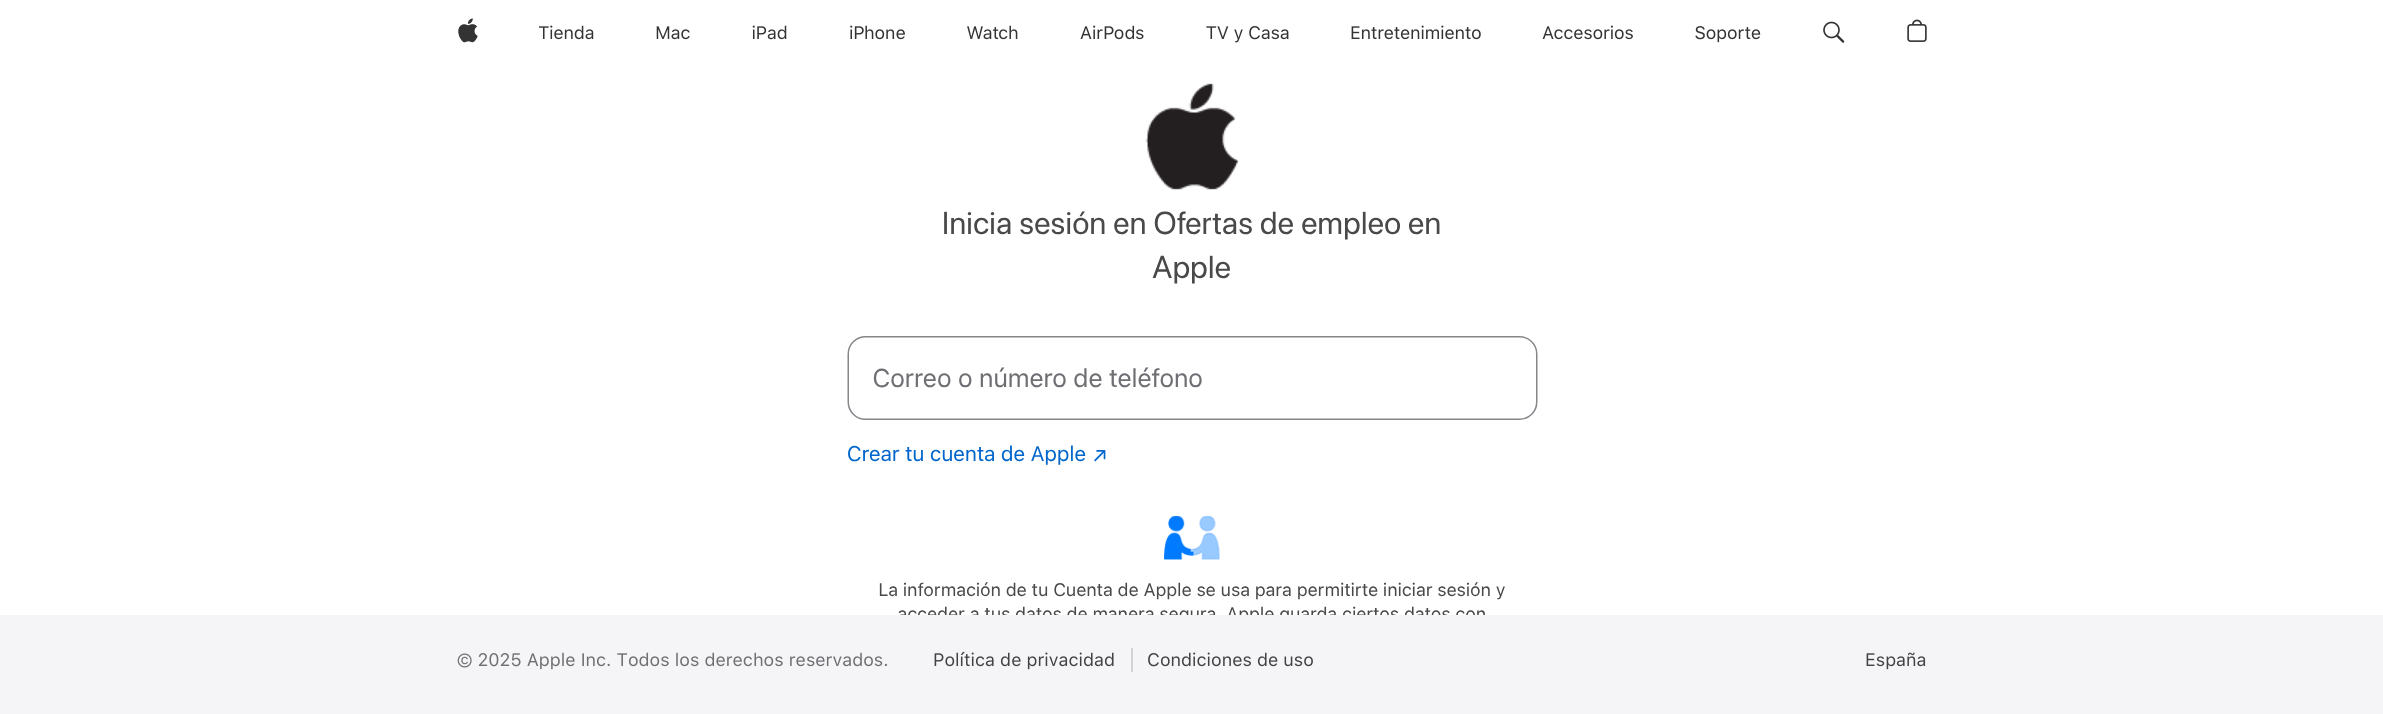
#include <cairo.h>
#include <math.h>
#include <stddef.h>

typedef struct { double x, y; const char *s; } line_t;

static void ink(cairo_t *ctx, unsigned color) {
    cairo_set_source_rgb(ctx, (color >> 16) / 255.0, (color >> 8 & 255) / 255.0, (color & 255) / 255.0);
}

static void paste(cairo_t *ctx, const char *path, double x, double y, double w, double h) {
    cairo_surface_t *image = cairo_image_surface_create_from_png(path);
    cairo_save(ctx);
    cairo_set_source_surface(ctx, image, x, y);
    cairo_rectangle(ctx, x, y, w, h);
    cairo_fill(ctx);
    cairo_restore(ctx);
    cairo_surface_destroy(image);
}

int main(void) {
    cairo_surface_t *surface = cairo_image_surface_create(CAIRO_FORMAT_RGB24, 2383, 714);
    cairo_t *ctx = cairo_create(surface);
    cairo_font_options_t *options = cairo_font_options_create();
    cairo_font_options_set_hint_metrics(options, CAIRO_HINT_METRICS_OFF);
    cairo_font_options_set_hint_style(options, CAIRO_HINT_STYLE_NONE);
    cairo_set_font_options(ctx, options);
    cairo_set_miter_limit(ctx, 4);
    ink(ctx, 0xFFFFFF);
    cairo_paint(ctx);
    paste(ctx, "media/1.png", 458, 18, 20, 25);
    paste(ctx, "media/2.png", 539, 25, 55, 15);
    paste(ctx, "media/3.png", 656, 26, 34, 14);
    paste(ctx, "media/4.png", 752, 25, 35, 15);
    paste(ctx, "media/5.png", 850, 25, 55, 15);
    paste(ctx, "media/6.png", 967, 25, 51, 15);
    paste(ctx, "media/7.png", 1080, 25, 64, 15);
    paste(ctx, "media/8.png", 1206, 26, 83, 17);
    paste(ctx, "media/9.png", 1351, 25, 130, 15);
    paste(ctx, "media/10.png", 1542, 25, 91, 15);
    paste(ctx, "media/11.png", 1695, 26, 66, 17);
    paste(ctx, "media/12.png", 1823, 21, 22, 22);
    paste(ctx, "media/13.png", 1907, 19, 20, 23);
    paste(ctx, "media/14.png", 847, 83, 691, 532);
    ink(ctx, 0xF5F5F7);
    cairo_rectangle(ctx, 0, 615, 2383, 99);
    cairo_fill(ctx);
    cairo_select_font_face(ctx, "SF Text", CAIRO_FONT_SLANT_NORMAL, CAIRO_FONT_WEIGHT_NORMAL);
    cairo_set_font_size(ctx, 18);
    ink(ctx, 0x6E6E73);
    cairo_move_to(ctx, 457, 666);
    cairo_show_text(ctx, "© 2025 Apple Inc. Todos los derechos reservados.");
    ink(ctx, 0xD2D2D7);
    cairo_rectangle(ctx, 1131, 648, 2, 24);
    cairo_fill(ctx);
    ink(ctx, 0x424245);
    {
        static const line_t items[] = {
            {933, 666, "Política de privacidad"},
            {1147, 666, "Condiciones de uso"},
            {1865, 666, "España"},
        };
        for (size_t i = 0; i < sizeof items / sizeof *items; i++) {
            cairo_move_to(ctx, items[i].x, items[i].y);
            cairo_show_text(ctx, items[i].s);
        }
    }
    cairo_surface_write_to_png(surface, "image.png");
    cairo_font_options_destroy(options);
    cairo_destroy(ctx);
    cairo_surface_destroy(surface);
    return 0;
}
